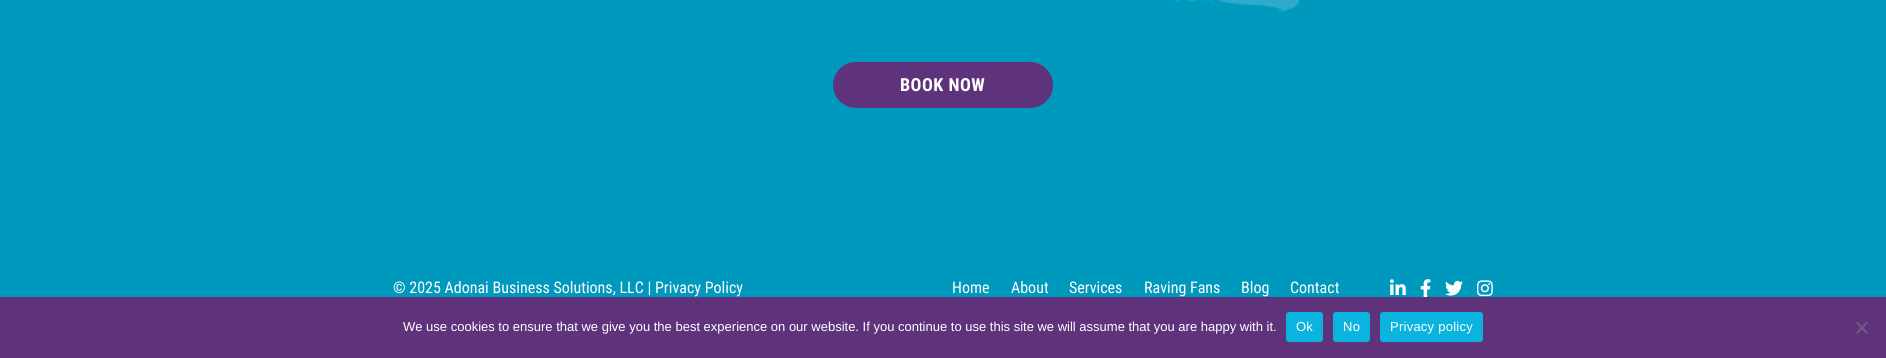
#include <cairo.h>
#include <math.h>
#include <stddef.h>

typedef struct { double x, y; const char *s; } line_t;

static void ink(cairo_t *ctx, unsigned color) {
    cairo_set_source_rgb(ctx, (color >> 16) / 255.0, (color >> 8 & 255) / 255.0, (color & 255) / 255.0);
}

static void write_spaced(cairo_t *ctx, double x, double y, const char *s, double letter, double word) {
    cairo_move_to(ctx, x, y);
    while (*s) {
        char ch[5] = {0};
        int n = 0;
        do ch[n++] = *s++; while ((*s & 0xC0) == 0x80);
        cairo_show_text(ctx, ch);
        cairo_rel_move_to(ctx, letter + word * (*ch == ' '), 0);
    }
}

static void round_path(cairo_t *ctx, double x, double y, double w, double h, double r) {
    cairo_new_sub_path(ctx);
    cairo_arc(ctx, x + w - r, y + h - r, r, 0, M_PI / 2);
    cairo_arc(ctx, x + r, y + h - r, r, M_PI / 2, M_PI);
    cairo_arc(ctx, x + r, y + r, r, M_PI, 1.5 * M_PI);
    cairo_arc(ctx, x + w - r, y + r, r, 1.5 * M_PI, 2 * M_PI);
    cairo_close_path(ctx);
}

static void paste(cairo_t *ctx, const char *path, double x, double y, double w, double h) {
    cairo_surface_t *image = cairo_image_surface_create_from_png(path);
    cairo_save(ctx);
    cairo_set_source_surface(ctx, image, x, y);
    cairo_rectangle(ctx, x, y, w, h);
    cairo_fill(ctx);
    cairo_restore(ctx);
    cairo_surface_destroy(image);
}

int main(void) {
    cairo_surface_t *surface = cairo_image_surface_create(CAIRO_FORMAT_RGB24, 1886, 358);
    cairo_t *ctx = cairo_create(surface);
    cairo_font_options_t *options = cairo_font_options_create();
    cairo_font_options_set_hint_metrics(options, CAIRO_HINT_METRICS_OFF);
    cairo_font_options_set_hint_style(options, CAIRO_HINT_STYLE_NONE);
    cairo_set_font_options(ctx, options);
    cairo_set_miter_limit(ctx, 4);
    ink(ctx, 0x0099BE);
    cairo_paint(ctx);
    paste(ctx, "media/1.png", 1174, 0, 125, 12);
    ink(ctx, 0x5E337C);
    round_path(ctx, 834, 63, 218, 44, 22);
    cairo_fill_preserve(ctx);
    cairo_stroke(ctx);
    cairo_select_font_face(ctx, "Roboto Condensed", CAIRO_FONT_SLANT_NORMAL, CAIRO_FONT_WEIGHT_BOLD);
    cairo_set_font_size(ctx, 18);
    ink(ctx, 0xFFFFFF);
    write_spaced(ctx, 900, 91, "BOOK NOW", 0.5, 0);
    cairo_select_font_face(ctx, "Roboto Condensed", CAIRO_FONT_SLANT_NORMAL, CAIRO_FONT_WEIGHT_NORMAL);
    cairo_set_font_size(ctx, 16);
    {
        static const line_t items[] = {
            {393, 293, "© 2025 Adonai Business Solutions, LLC | Privacy Policy"},
            {952, 293, "Home"},
            {1011, 293, "About"},
            {1069, 293, "Services"},
            {1144, 293, "Raving Fans"},
            {1241, 293, "Blog"},
            {1290, 293, "Contact"},
        };
        for (size_t i = 0; i < sizeof items / sizeof *items; i++) {
            cairo_move_to(ctx, items[i].x, items[i].y);
            cairo_show_text(ctx, items[i].s);
        }
    }
    paste(ctx, "media/2.png", 1390, 279, 16, 16);
    paste(ctx, "media/3.png", 1420, 279, 11, 18);
    paste(ctx, "media/4.png", 1445, 280, 18, 16);
    paste(ctx, "media/5.png", 1477, 280, 16, 17);
    ink(ctx, 0x5E337C);
    cairo_rectangle(ctx, 0, 297, 1886, 61);
    cairo_fill(ctx);
    cairo_select_font_face(ctx, "Liberation Sans", CAIRO_FONT_SLANT_NORMAL, CAIRO_FONT_WEIGHT_NORMAL);
    cairo_set_font_size(ctx, 13);
    ink(ctx, 0xFFFFFF);
    cairo_move_to(ctx, 403, 331);
    cairo_show_text(ctx, "We use cookies to ensure that we give you the best experience on our website. If you continue to use this site we will assume that you are happy with it.");
    ink(ctx, 0x0BB4DF);
    round_path(ctx, 1286, 312, 37, 30, 3);
    cairo_fill(ctx);
    ink(ctx, 0xFFFFFF);
    write_spaced(ctx, 1296, 331, "Ok", 0.25, 0);
    ink(ctx, 0x0BB4DF);
    round_path(ctx, 1333, 312, 37, 30, 3);
    cairo_fill(ctx);
    ink(ctx, 0xFFFFFF);
    write_spaced(ctx, 1343, 331, "No", 0.25, 0);
    ink(ctx, 0x0BB4DF);
    round_path(ctx, 1380, 312, 103, 30, 3);
    cairo_fill(ctx);
    ink(ctx, 0xFFFFFF);
    write_spaced(ctx, 1390, 331, "Privacy policy", 0.25, 0);
    ink(ctx, 0x6F5A7E);
    cairo_new_path(ctx);
    cairo_move_to(ctx, 1866.5, 321.5);
    cairo_line_to(ctx, 1868, 323);
    cairo_line_to(ctx, 1857.5, 334);
    cairo_line_to(ctx, 1856, 332.5);
    cairo_close_path(ctx);
    cairo_fill(ctx);
    cairo_new_path(ctx);
    cairo_move_to(ctx, 1856, 323);
    cairo_line_to(ctx, 1857.5, 321.5);
    cairo_line_to(ctx, 1868, 332.5);
    cairo_line_to(ctx, 1866.5, 334);
    cairo_close_path(ctx);
    cairo_fill(ctx);
    cairo_surface_write_to_png(surface, "image.png");
    cairo_font_options_destroy(options);
    cairo_destroy(ctx);
    cairo_surface_destroy(surface);
    return 0;
}
